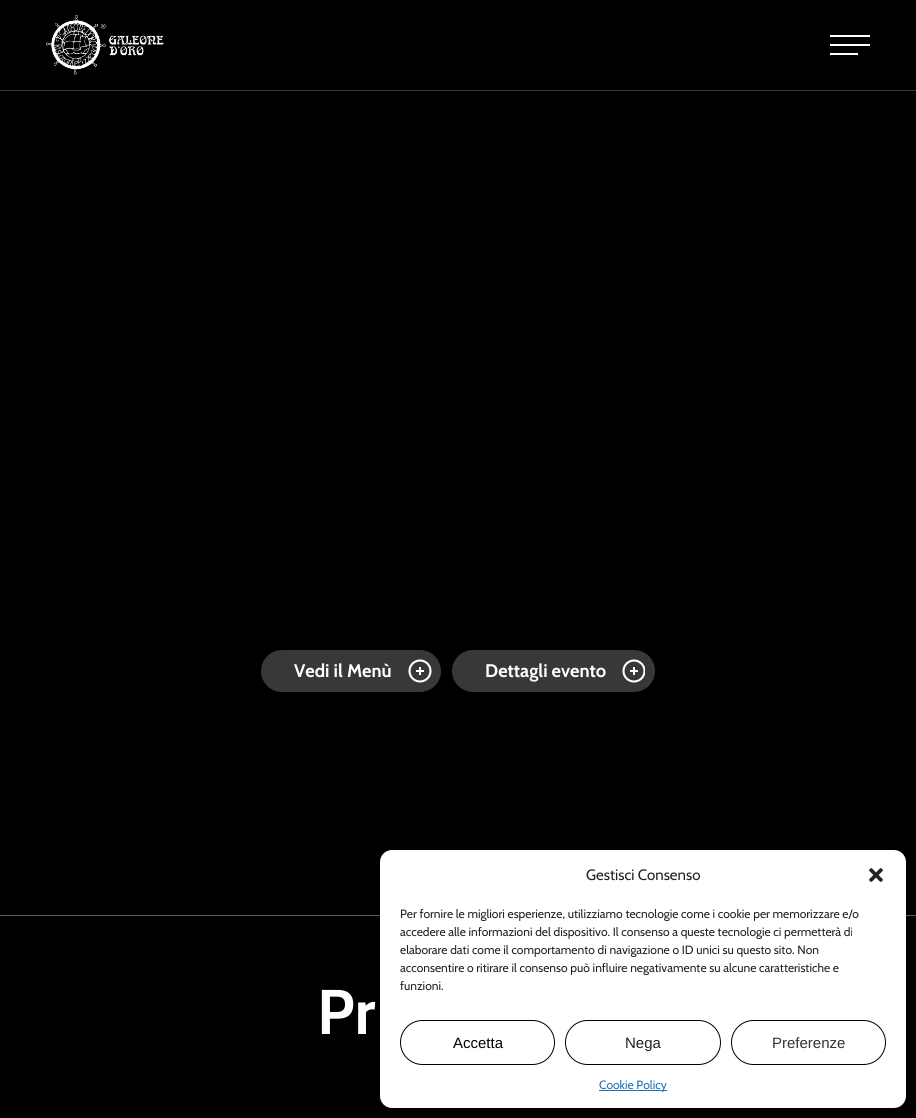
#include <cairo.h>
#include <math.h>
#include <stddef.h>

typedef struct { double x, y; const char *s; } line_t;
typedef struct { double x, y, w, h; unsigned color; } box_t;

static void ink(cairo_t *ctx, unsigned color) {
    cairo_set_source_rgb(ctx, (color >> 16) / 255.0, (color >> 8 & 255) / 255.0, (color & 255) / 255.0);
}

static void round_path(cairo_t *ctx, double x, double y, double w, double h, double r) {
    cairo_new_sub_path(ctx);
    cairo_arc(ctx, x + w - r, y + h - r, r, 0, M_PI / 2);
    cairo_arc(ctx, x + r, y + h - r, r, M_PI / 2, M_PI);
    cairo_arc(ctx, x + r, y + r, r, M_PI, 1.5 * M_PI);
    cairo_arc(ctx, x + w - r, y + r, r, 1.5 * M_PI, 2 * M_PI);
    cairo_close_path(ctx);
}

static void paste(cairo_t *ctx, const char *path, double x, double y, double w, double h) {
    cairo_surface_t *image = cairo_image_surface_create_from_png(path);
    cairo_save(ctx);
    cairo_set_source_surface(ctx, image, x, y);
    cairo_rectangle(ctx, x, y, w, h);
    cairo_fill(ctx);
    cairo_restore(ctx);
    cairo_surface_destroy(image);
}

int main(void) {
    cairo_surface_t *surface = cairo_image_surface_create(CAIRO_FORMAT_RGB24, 916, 1118);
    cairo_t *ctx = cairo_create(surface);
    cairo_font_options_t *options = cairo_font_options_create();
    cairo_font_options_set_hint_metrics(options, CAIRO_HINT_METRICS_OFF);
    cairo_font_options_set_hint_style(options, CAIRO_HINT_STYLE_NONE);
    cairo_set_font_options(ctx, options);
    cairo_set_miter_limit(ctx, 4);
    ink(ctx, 0x000000);
    cairo_paint(ctx);
    ink(ctx, 0x3A3A3A);
    cairo_rectangle(ctx, 0, 90, 916, 1);
    cairo_fill(ctx);
    paste(ctx, "media/1.png", 46, 15, 118, 60);
    {
        static const box_t items[] = {
            {830, 35, 40, 2, 0xFFFFFF},
            {830, 44, 40, 2, 0xFFFFFF},
            {830, 53, 28, 2, 0xFFFFFF},
        };
        for (size_t i = 0; i < sizeof items / sizeof *items; i++) {
            ink(ctx, items[i].color);
            cairo_rectangle(ctx, items[i].x, items[i].y, items[i].w, items[i].h);
            cairo_fill(ctx);
        }
    }
    ink(ctx, 0x383838);
    round_path(ctx, 261, 650, 180, 42, 21);
    cairo_fill(ctx);
    cairo_select_font_face(ctx, "Cabin", CAIRO_FONT_SLANT_NORMAL, CAIRO_FONT_WEIGHT_BOLD);
    cairo_set_font_size(ctx, 18.25);
    ink(ctx, 0xFFFFFF);
    cairo_move_to(ctx, 294, 677);
    cairo_show_text(ctx, "Vedi il Menù");
    cairo_new_path(ctx);
    cairo_arc(ctx, 420, 671, 10.5, 0, 2 * M_PI);
    cairo_set_line_width(ctx, 2.1);
    cairo_stroke(ctx);
    cairo_rectangle(ctx, 416, 670, 8, 2);
    cairo_fill(ctx);
    cairo_rectangle(ctx, 419, 667, 2, 8);
    cairo_fill(ctx);
    ink(ctx, 0x383838);
    round_path(ctx, 452, 650, 203, 42, 21);
    cairo_fill(ctx);
    ink(ctx, 0xFFFFFF);
    cairo_move_to(ctx, 485, 677);
    cairo_show_text(ctx, "Dettagli evento");
    cairo_save(ctx);
    cairo_rectangle(ctx, 622, 659, 23, 24);
    cairo_clip(ctx);
    cairo_arc(ctx, 634, 671, 10.5, 0, 2 * M_PI);
    cairo_stroke(ctx);
    cairo_restore(ctx);
    {
        static const box_t items[] = {
            {630, 670, 8, 2, 0xFFFFFF},
            {633, 667, 2, 8, 0xFFFFFF},
            {0, 915, 916, 1, 0x5B5B5B},
        };
        for (size_t i = 0; i < sizeof items / sizeof *items; i++) {
            ink(ctx, items[i].color);
            cairo_rectangle(ctx, items[i].x, items[i].y, items[i].w, items[i].h);
            cairo_fill(ctx);
        }
    }
    cairo_set_font_size(ctx, 63);
    ink(ctx, 0xFFFFFF);
    cairo_move_to(ctx, 317, 1034);
    cairo_show_text(ctx, "Pr");
    round_path(ctx, 380, 850, 526, 258, 12);
    cairo_fill(ctx);
    cairo_select_font_face(ctx, "Cabin", CAIRO_FONT_SLANT_NORMAL, CAIRO_FONT_WEIGHT_NORMAL);
    cairo_set_font_size(ctx, 15);
    ink(ctx, 0x222222);
    cairo_move_to(ctx, 586, 880);
    cairo_show_text(ctx, "Gestisci Consenso");
    paste(ctx, "media/2.png", 869, 868, 14, 14);
    cairo_set_font_size(ctx, 12);
    {
        static const line_t items[] = {
            {400, 918, "Per fornire le migliori esperienze, utilizziamo tecnologie come i cookie per memorizzare e/o"},
            {400, 936, "accedere alle informazioni del dispositivo. Il consenso a queste tecnologie ci permetterà di"},
            {400, 954, "elaborare dati come il comportamento di navigazione o ID unici su questo sito. Non"},
            {400, 972, "acconsentire o ritirare il consenso può influire negativamente su alcune caratteristiche e"},
            {400, 990, "funzioni."},
        };
        for (size_t i = 0; i < sizeof items / sizeof *items; i++) {
            cairo_move_to(ctx, items[i].x, items[i].y);
            cairo_show_text(ctx, items[i].s);
        }
    }
    round_path(ctx, 400.5, 1020.5, 154, 44, 22);
    ink(ctx, 0x000000);
    cairo_set_line_width(ctx, 1);
    cairo_stroke(ctx);
    cairo_select_font_face(ctx, "Liberation Sans", CAIRO_FONT_SLANT_NORMAL, CAIRO_FONT_WEIGHT_NORMAL);
    cairo_set_font_size(ctx, 15);
    cairo_move_to(ctx, 453, 1048);
    cairo_show_text(ctx, "Accetta");
    round_path(ctx, 565.5, 1020.5, 155, 44, 22);
    cairo_stroke(ctx);
    ink(ctx, 0x222222);
    cairo_move_to(ctx, 625, 1048);
    cairo_show_text(ctx, "Nega");
    round_path(ctx, 731.5, 1020.5, 154, 44, 22);
    ink(ctx, 0x000000);
    cairo_stroke(ctx);
    ink(ctx, 0x333333);
    cairo_move_to(ctx, 772, 1048);
    cairo_show_text(ctx, "Preferenze");
    ink(ctx, 0x1E73BE);
    cairo_rectangle(ctx, 599, 1090, 68, 1);
    cairo_fill(ctx);
    cairo_select_font_face(ctx, "Cabin", CAIRO_FONT_SLANT_NORMAL, CAIRO_FONT_WEIGHT_NORMAL);
    cairo_set_font_size(ctx, 12);
    cairo_move_to(ctx, 599, 1089);
    cairo_show_text(ctx, "Cookie Policy");
    cairo_surface_write_to_png(surface, "image.png");
    cairo_font_options_destroy(options);
    cairo_destroy(ctx);
    cairo_surface_destroy(surface);
    return 0;
}
